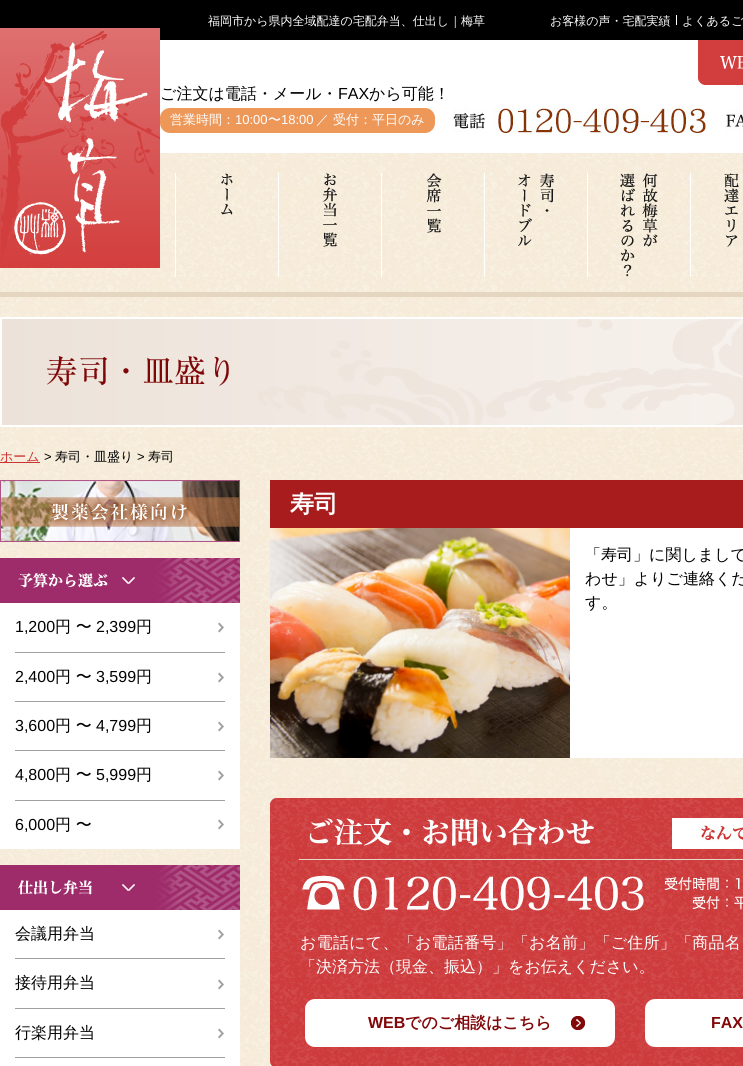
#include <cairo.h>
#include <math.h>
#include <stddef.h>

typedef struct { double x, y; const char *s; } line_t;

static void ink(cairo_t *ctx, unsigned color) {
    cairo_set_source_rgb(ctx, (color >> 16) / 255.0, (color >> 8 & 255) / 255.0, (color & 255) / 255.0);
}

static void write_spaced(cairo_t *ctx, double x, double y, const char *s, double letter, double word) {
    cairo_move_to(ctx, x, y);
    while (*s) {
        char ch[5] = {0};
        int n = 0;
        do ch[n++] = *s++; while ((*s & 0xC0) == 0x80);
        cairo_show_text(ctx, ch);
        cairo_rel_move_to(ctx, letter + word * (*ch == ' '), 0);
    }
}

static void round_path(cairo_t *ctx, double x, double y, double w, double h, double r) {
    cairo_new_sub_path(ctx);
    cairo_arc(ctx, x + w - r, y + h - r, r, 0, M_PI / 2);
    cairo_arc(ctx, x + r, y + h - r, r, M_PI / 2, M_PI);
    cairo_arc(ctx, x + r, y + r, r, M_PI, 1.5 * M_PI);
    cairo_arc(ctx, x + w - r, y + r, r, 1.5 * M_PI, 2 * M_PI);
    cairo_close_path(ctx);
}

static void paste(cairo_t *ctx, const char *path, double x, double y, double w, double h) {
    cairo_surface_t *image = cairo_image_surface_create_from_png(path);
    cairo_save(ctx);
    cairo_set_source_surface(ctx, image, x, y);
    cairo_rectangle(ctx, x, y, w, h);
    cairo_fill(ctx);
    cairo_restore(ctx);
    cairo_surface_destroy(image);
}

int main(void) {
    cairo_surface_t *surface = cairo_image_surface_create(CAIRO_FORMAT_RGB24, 743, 1066);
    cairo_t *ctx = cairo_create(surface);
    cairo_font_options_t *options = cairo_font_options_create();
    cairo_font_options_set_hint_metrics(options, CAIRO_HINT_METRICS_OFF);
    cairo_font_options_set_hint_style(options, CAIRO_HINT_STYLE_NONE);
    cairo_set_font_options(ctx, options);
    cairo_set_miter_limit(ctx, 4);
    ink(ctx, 0xFFFFFF);
    cairo_paint(ctx);
    paste(ctx, "media/1.png", 0, 277, 743, 789);
    ink(ctx, 0x000000);
    cairo_rectangle(ctx, 0, 0, 743, 40);
    cairo_fill(ctx);
    cairo_select_font_face(ctx, "WenQuanYi Zen Hei Medium", CAIRO_FONT_SLANT_NORMAL, CAIRO_FONT_WEIGHT_NORMAL);
    cairo_set_font_size(ctx, 12);
    ink(ctx, 0xFFFFFF);
    cairo_move_to(ctx, 208, 25);
    cairo_show_text(ctx, "福岡市から県内全域配達の宅配弁当、仕出し｜梅草");
    cairo_move_to(ctx, 550, 25);
    cairo_show_text(ctx, "お客様の声・宅配実績");
    cairo_rectangle(ctx, 676, 15, 1, 10);
    cairo_fill(ctx);
    cairo_move_to(ctx, 682, 25);
    cairo_show_text(ctx, "よくあるご");
    paste(ctx, "media/2.png", 0, 153, 743, 124);
    paste(ctx, "media/3.png", 0, 28, 160, 240);
    cairo_rectangle(ctx, 175, 173, 1, 104);
    cairo_fill(ctx);
    paste(ctx, "media/4.png", 208, 173, 38, 104);
    cairo_rectangle(ctx, 278, 173, 1, 104);
    cairo_fill(ctx);
    paste(ctx, "media/5.png", 311, 173, 38, 104);
    cairo_rectangle(ctx, 381, 173, 1, 104);
    cairo_fill(ctx);
    paste(ctx, "media/6.png", 414, 173, 38, 104);
    cairo_rectangle(ctx, 484, 173, 1, 104);
    cairo_fill(ctx);
    paste(ctx, "media/7.png", 517, 173, 38, 104);
    cairo_rectangle(ctx, 587, 173, 1, 104);
    cairo_fill(ctx);
    paste(ctx, "media/8.png", 620, 173, 38, 104);
    cairo_rectangle(ctx, 690, 173, 1, 104);
    cairo_fill(ctx);
    paste(ctx, "media/9.png", 723, 173, 20, 104);
    paste(ctx, "media/10.png", 698, 40, 45, 45);
    paste(ctx, "media/11.png", 453, 108, 290, 25);
    cairo_set_font_size(ctx, 16);
    ink(ctx, 0x000000);
    cairo_move_to(ctx, 160, 99);
    cairo_show_text(ctx, "ご注文は電話・メール・");
    cairo_select_font_face(ctx, "Liberation Sans", CAIRO_FONT_SLANT_NORMAL, CAIRO_FONT_WEIGHT_NORMAL);
    cairo_move_to(ctx, 338, 99);
    cairo_show_text(ctx, "FAX");
    cairo_select_font_face(ctx, "WenQuanYi Zen Hei Medium", CAIRO_FONT_SLANT_NORMAL, CAIRO_FONT_WEIGHT_NORMAL);
    cairo_move_to(ctx, 369, 99);
    cairo_show_text(ctx, "から可能！");
    ink(ctx, 0xED9859);
    round_path(ctx, 160, 108, 275, 25, 10);
    cairo_fill(ctx);
    cairo_set_font_size(ctx, 13);
    ink(ctx, 0xFFFFFF);
    cairo_move_to(ctx, 170, 124);
    cairo_show_text(ctx, "営業時間：");
    cairo_select_font_face(ctx, "Liberation Sans", CAIRO_FONT_SLANT_NORMAL, CAIRO_FONT_WEIGHT_NORMAL);
    cairo_move_to(ctx, 235, 124);
    cairo_show_text(ctx, "10:00");
    cairo_select_font_face(ctx, "WenQuanYi Zen Hei Medium", CAIRO_FONT_SLANT_NORMAL, CAIRO_FONT_WEIGHT_NORMAL);
    cairo_move_to(ctx, 268, 124);
    cairo_show_text(ctx, "〜");
    cairo_select_font_face(ctx, "Liberation Sans", CAIRO_FONT_SLANT_NORMAL, CAIRO_FONT_WEIGHT_NORMAL);
    cairo_move_to(ctx, 281, 124);
    cairo_show_text(ctx, "18:00");
    cairo_select_font_face(ctx, "WenQuanYi Zen Hei Medium", CAIRO_FONT_SLANT_NORMAL, CAIRO_FONT_WEIGHT_NORMAL);
    cairo_move_to(ctx, 316, 124);
    cairo_show_text(ctx, "／ 受付：平日のみ");
    ink(ctx, 0xE4D6C0);
    cairo_rectangle(ctx, 0, 292, 743, 5);
    cairo_fill(ctx);
    paste(ctx, "media/12.png", 0, 317, 743, 110);
    ink(ctx, 0xCC3333);
    cairo_rectangle(ctx, 0, 462, 40, 1);
    cairo_fill(ctx);
    cairo_move_to(ctx, 0, 461);
    cairo_show_text(ctx, "ホーム");
    cairo_select_font_face(ctx, "Liberation Sans", CAIRO_FONT_SLANT_NORMAL, CAIRO_FONT_WEIGHT_NORMAL);
    ink(ctx, 0x000000);
    cairo_move_to(ctx, 44, 461);
    cairo_show_text(ctx, ">");
    cairo_select_font_face(ctx, "WenQuanYi Zen Hei Medium", CAIRO_FONT_SLANT_NORMAL, CAIRO_FONT_WEIGHT_NORMAL);
    cairo_move_to(ctx, 55, 461);
    cairo_show_text(ctx, "寿司・皿盛り");
    cairo_select_font_face(ctx, "Liberation Sans", CAIRO_FONT_SLANT_NORMAL, CAIRO_FONT_WEIGHT_NORMAL);
    cairo_move_to(ctx, 137, 461);
    cairo_show_text(ctx, ">");
    cairo_select_font_face(ctx, "WenQuanYi Zen Hei Medium", CAIRO_FONT_SLANT_NORMAL, CAIRO_FONT_WEIGHT_NORMAL);
    cairo_move_to(ctx, 148, 461);
    cairo_show_text(ctx, "寿司");
    paste(ctx, "media/13.png", 0, 480, 240, 62);
    paste(ctx, "media/14.png", 0, 558, 240, 45);
    ink(ctx, 0xFFFFFF);
    cairo_rectangle(ctx, 0, 603, 240, 246);
    cairo_fill(ctx);
    paste(ctx, "media/15.png", 218, 622, 6, 11);
    ink(ctx, 0xA0A0A0);
    cairo_rectangle(ctx, 15, 652, 210, 1);
    cairo_fill(ctx);
    cairo_select_font_face(ctx, "Liberation Sans", CAIRO_FONT_SLANT_NORMAL, CAIRO_FONT_WEIGHT_NORMAL);
    cairo_set_font_size(ctx, 16);
    ink(ctx, 0x000000);
    cairo_move_to(ctx, 15, 632);
    cairo_show_text(ctx, "1,200");
    cairo_select_font_face(ctx, "WenQuanYi Zen Hei Medium", CAIRO_FONT_SLANT_NORMAL, CAIRO_FONT_WEIGHT_NORMAL);
    cairo_move_to(ctx, 55, 632);
    cairo_show_text(ctx, "円 〜");
    cairo_select_font_face(ctx, "Liberation Sans", CAIRO_FONT_SLANT_NORMAL, CAIRO_FONT_WEIGHT_NORMAL);
    cairo_move_to(ctx, 96, 632);
    cairo_show_text(ctx, "2,399");
    cairo_select_font_face(ctx, "WenQuanYi Zen Hei Medium", CAIRO_FONT_SLANT_NORMAL, CAIRO_FONT_WEIGHT_NORMAL);
    cairo_move_to(ctx, 136, 632);
    cairo_show_text(ctx, "円");
    paste(ctx, "media/15.png", 218, 672, 6, 11);
    ink(ctx, 0xA0A0A0);
    cairo_rectangle(ctx, 15, 701, 210, 1);
    cairo_fill(ctx);
    cairo_select_font_face(ctx, "Liberation Sans", CAIRO_FONT_SLANT_NORMAL, CAIRO_FONT_WEIGHT_NORMAL);
    ink(ctx, 0x000000);
    cairo_move_to(ctx, 15, 682);
    cairo_show_text(ctx, "2,400");
    cairo_select_font_face(ctx, "WenQuanYi Zen Hei Medium", CAIRO_FONT_SLANT_NORMAL, CAIRO_FONT_WEIGHT_NORMAL);
    cairo_move_to(ctx, 55, 682);
    cairo_show_text(ctx, "円 〜");
    cairo_select_font_face(ctx, "Liberation Sans", CAIRO_FONT_SLANT_NORMAL, CAIRO_FONT_WEIGHT_NORMAL);
    cairo_move_to(ctx, 96, 682);
    cairo_show_text(ctx, "3,599");
    cairo_select_font_face(ctx, "WenQuanYi Zen Hei Medium", CAIRO_FONT_SLANT_NORMAL, CAIRO_FONT_WEIGHT_NORMAL);
    cairo_move_to(ctx, 136, 682);
    cairo_show_text(ctx, "円");
    paste(ctx, "media/15.png", 218, 721, 6, 11);
    ink(ctx, 0xA0A0A0);
    cairo_rectangle(ctx, 15, 750, 210, 1);
    cairo_fill(ctx);
    cairo_select_font_face(ctx, "Liberation Sans", CAIRO_FONT_SLANT_NORMAL, CAIRO_FONT_WEIGHT_NORMAL);
    ink(ctx, 0x000000);
    cairo_move_to(ctx, 15, 731);
    cairo_show_text(ctx, "3,600");
    cairo_select_font_face(ctx, "WenQuanYi Zen Hei Medium", CAIRO_FONT_SLANT_NORMAL, CAIRO_FONT_WEIGHT_NORMAL);
    cairo_move_to(ctx, 55, 731);
    cairo_show_text(ctx, "円 〜");
    cairo_select_font_face(ctx, "Liberation Sans", CAIRO_FONT_SLANT_NORMAL, CAIRO_FONT_WEIGHT_NORMAL);
    cairo_move_to(ctx, 96, 731);
    cairo_show_text(ctx, "4,799");
    cairo_select_font_face(ctx, "WenQuanYi Zen Hei Medium", CAIRO_FONT_SLANT_NORMAL, CAIRO_FONT_WEIGHT_NORMAL);
    cairo_move_to(ctx, 136, 731);
    cairo_show_text(ctx, "円");
    paste(ctx, "media/15.png", 218, 770, 6, 11);
    ink(ctx, 0xA0A0A0);
    cairo_rectangle(ctx, 15, 800, 210, 1);
    cairo_fill(ctx);
    cairo_select_font_face(ctx, "Liberation Sans", CAIRO_FONT_SLANT_NORMAL, CAIRO_FONT_WEIGHT_NORMAL);
    ink(ctx, 0x000000);
    cairo_move_to(ctx, 15, 780);
    cairo_show_text(ctx, "4,800");
    cairo_select_font_face(ctx, "WenQuanYi Zen Hei Medium", CAIRO_FONT_SLANT_NORMAL, CAIRO_FONT_WEIGHT_NORMAL);
    cairo_move_to(ctx, 55, 780);
    cairo_show_text(ctx, "円 〜");
    cairo_select_font_face(ctx, "Liberation Sans", CAIRO_FONT_SLANT_NORMAL, CAIRO_FONT_WEIGHT_NORMAL);
    cairo_move_to(ctx, 96, 780);
    cairo_show_text(ctx, "5,999");
    cairo_select_font_face(ctx, "WenQuanYi Zen Hei Medium", CAIRO_FONT_SLANT_NORMAL, CAIRO_FONT_WEIGHT_NORMAL);
    cairo_move_to(ctx, 136, 780);
    cairo_show_text(ctx, "円");
    paste(ctx, "media/15.png", 218, 819, 6, 11);
    cairo_select_font_face(ctx, "Liberation Sans", CAIRO_FONT_SLANT_NORMAL, CAIRO_FONT_WEIGHT_NORMAL);
    cairo_move_to(ctx, 15, 830);
    cairo_show_text(ctx, "6,000");
    cairo_select_font_face(ctx, "WenQuanYi Zen Hei Medium", CAIRO_FONT_SLANT_NORMAL, CAIRO_FONT_WEIGHT_NORMAL);
    cairo_move_to(ctx, 55, 830);
    cairo_show_text(ctx, "円 〜");
    paste(ctx, "media/16.png", 0, 865, 240, 45);
    ink(ctx, 0xFFFFFF);
    cairo_rectangle(ctx, 0, 910, 240, 156);
    cairo_fill(ctx);
    paste(ctx, "media/15.png", 218, 929, 6, 11);
    ink(ctx, 0xA0A0A0);
    cairo_rectangle(ctx, 15, 958, 210, 1);
    cairo_fill(ctx);
    ink(ctx, 0x000000);
    cairo_move_to(ctx, 15, 939);
    cairo_show_text(ctx, "会議用弁当");
    paste(ctx, "media/15.png", 218, 979, 6, 11);
    ink(ctx, 0xA0A0A0);
    cairo_rectangle(ctx, 15, 1008, 210, 1);
    cairo_fill(ctx);
    ink(ctx, 0x000000);
    cairo_move_to(ctx, 15, 988);
    cairo_show_text(ctx, "接待用弁当");
    paste(ctx, "media/15.png", 218, 1028, 6, 11);
    ink(ctx, 0xA0A0A0);
    cairo_rectangle(ctx, 15, 1057, 210, 1);
    cairo_fill(ctx);
    ink(ctx, 0x000000);
    cairo_move_to(ctx, 15, 1038);
    cairo_show_text(ctx, "行楽用弁当");
    ink(ctx, 0xA91C1D);
    cairo_rectangle(ctx, 270, 480, 473, 48);
    cairo_fill(ctx);
    cairo_select_font_face(ctx, "WenQuanYi Zen Hei", CAIRO_FONT_SLANT_NORMAL, CAIRO_FONT_WEIGHT_BOLD);
    cairo_set_font_size(ctx, 24);
    ink(ctx, 0xFFFFFF);
    cairo_move_to(ctx, 290, 512);
    cairo_show_text(ctx, "寿司");
    cairo_rectangle(ctx, 570, 528, 173, 230);
    cairo_fill(ctx);
    paste(ctx, "media/17.png", 270, 528, 300, 230);
    cairo_select_font_face(ctx, "WenQuanYi Zen Hei Medium", CAIRO_FONT_SLANT_NORMAL, CAIRO_FONT_WEIGHT_NORMAL);
    cairo_set_font_size(ctx, 16);
    ink(ctx, 0x000000);
    {
        static const line_t items[] = {
            {585, 560, "「寿司」に関しまして"},
            {585, 584, "わせ」よりご連絡くだ"},
            {585, 608, "す。"},
        };
        for (size_t i = 0; i < sizeof items / sizeof *items; i++) {
            cairo_move_to(ctx, items[i].x, items[i].y);
            cairo_show_text(ctx, items[i].s);
        }
    }
    paste(ctx, "media/18.png", 270, 798, 473, 268);
    paste(ctx, "media/19.png", 299, 818, 444, 93);
    ink(ctx, 0xFFFFFF);
    write_spaced(ctx, 300, 948, "お電話にて、「お電話番号」「お名前」「ご住所」「商品名", 0.25, 0);
    cairo_move_to(ctx, 300, 972);
    cairo_show_text(ctx, "「決済方法（現金、振込）」をお伝えください。");
    round_path(ctx, 305, 999, 310, 48, 10);
    cairo_fill(ctx);
    paste(ctx, "media/20.png", 571, 1016, 14, 14);
    cairo_select_font_face(ctx, "Liberation Sans", CAIRO_FONT_SLANT_NORMAL, CAIRO_FONT_WEIGHT_BOLD);
    ink(ctx, 0x810709);
    cairo_move_to(ctx, 368, 1028);
    cairo_show_text(ctx, "WEB");
    cairo_select_font_face(ctx, "WenQuanYi Zen Hei", CAIRO_FONT_SLANT_NORMAL, CAIRO_FONT_WEIGHT_BOLD);
    cairo_move_to(ctx, 405, 1028);
    cairo_show_text(ctx, "でのご相談はこちら");
    ink(ctx, 0xFFFFFF);
    round_path(ctx, 645, 999, 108, 48, 10);
    cairo_fill(ctx);
    cairo_select_font_face(ctx, "Liberation Sans", CAIRO_FONT_SLANT_NORMAL, CAIRO_FONT_WEIGHT_BOLD);
    ink(ctx, 0x810709);
    cairo_move_to(ctx, 711, 1028);
    cairo_show_text(ctx, "FAX");
    cairo_surface_write_to_png(surface, "image.png");
    cairo_font_options_destroy(options);
    cairo_destroy(ctx);
    cairo_surface_destroy(surface);
    return 0;
}
